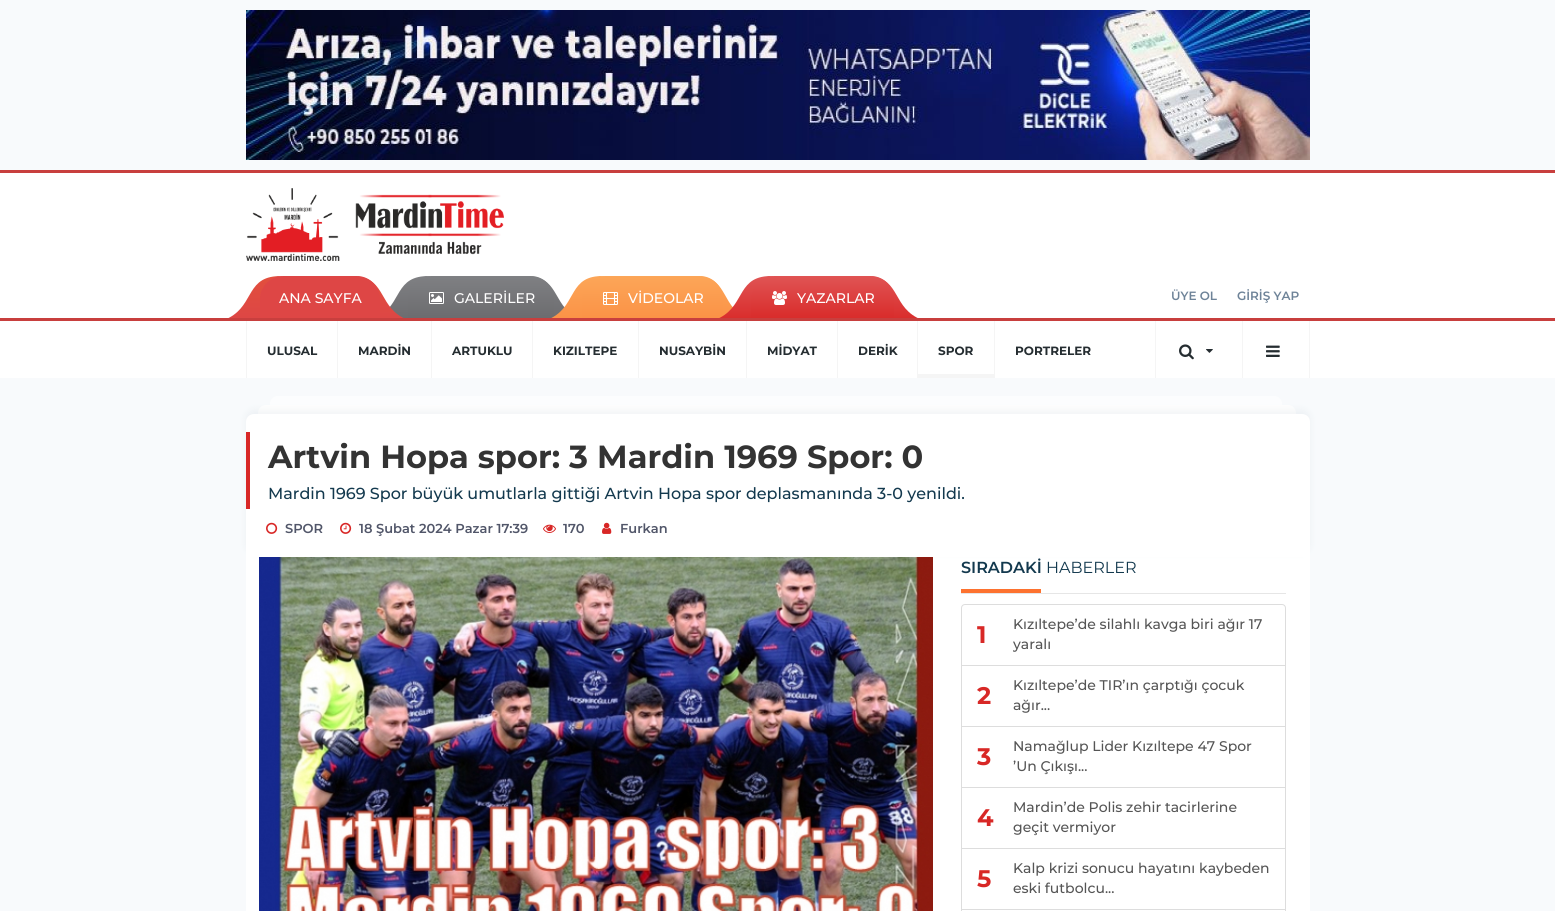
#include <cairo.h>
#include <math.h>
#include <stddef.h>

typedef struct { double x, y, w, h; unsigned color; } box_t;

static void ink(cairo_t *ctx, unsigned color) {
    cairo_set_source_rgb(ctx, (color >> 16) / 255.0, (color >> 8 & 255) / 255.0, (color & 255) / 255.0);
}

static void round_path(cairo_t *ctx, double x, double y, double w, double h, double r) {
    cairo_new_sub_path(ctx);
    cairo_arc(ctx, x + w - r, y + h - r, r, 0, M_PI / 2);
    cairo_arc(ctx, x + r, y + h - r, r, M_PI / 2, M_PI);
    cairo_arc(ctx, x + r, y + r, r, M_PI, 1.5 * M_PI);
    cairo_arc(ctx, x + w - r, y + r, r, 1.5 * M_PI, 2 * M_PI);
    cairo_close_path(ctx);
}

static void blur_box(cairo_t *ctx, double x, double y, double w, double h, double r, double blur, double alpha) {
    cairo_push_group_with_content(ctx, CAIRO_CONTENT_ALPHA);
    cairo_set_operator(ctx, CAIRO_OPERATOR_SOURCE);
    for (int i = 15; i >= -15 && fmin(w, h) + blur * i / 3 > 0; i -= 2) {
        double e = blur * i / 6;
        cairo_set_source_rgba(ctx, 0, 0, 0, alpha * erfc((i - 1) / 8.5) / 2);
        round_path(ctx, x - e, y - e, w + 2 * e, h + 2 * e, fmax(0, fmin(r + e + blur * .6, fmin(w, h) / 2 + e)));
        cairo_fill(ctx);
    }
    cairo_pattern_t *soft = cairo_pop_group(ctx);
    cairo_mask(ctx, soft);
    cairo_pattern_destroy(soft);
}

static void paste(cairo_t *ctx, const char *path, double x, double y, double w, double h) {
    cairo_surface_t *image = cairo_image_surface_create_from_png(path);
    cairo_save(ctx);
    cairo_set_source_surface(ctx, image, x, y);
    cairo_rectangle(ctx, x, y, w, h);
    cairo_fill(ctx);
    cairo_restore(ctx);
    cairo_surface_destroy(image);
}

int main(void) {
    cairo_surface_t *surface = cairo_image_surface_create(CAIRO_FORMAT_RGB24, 1555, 911);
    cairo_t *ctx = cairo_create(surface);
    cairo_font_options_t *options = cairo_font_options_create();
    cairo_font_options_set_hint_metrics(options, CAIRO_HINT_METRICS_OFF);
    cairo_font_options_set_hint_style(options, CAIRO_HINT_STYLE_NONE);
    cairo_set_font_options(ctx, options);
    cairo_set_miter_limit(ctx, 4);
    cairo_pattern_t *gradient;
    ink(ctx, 0xF8FAFC);
    cairo_paint(ctx);
    paste(ctx, "media/1.png", 246, 10, 1064, 150);
    ink(ctx, 0xFFFFFF);
    cairo_rectangle(ctx, 0, 173, 1555, 145);
    cairo_fill(ctx);
    ink(ctx, 0xC83F3E);
    cairo_rectangle(ctx, 0, 170, 1555, 3);
    cairo_fill(ctx);
    paste(ctx, "media/2.png", 246, 188, 258, 73);
    paste(ctx, "media/3.png", 228, 276, 54, 42);
    paste(ctx, "media/5.png", 389, 276, 41, 42);
    paste(ctx, "media/4.png", 358, 276, 46, 42);
    ink(ctx, 0xDE4645);
    cairo_new_path(ctx);
    cairo_move_to(ctx, 283, 276);
    cairo_line_to(ctx, 357, 276);
    cairo_curve_to(ctx, 369.5, 276, 380, 286.5, 380, 299);
    cairo_line_to(ctx, 380, 318);
    cairo_line_to(ctx, 260, 318);
    cairo_line_to(ctx, 260, 299);
    cairo_curve_to(ctx, 260, 286.5, 270.5, 276, 283, 276);
    cairo_close_path(ctx);
    cairo_fill(ctx);
    cairo_select_font_face(ctx, "Montserrat Medium", CAIRO_FONT_SLANT_NORMAL, CAIRO_FONT_WEIGHT_NORMAL);
    cairo_set_font_size(ctx, 14);
    ink(ctx, 0xFFFFFF);
    cairo_move_to(ctx, 279, 303);
    cairo_show_text(ctx, "ANA SAYFA");
    paste(ctx, "media/7.png", 532, 276, 33, 41);
    gradient = cairo_pattern_create_linear(481, 276, 481, 318);
    cairo_pattern_add_color_stop_rgba(gradient, 0, 0.498, 0.502, 0.514, 1);
    cairo_pattern_add_color_stop_rgba(gradient, 1, 0.424, 0.424, 0.435, 1);
    cairo_set_source(ctx, gradient);
    cairo_pattern_destroy(gradient);
    cairo_new_path(ctx);
    cairo_move_to(ctx, 431, 276);
    cairo_line_to(ctx, 531, 276);
    cairo_curve_to(ctx, 543.5, 276, 554, 286.5, 554, 299);
    cairo_line_to(ctx, 554, 318);
    cairo_line_to(ctx, 408, 318);
    cairo_line_to(ctx, 408, 299);
    cairo_curve_to(ctx, 408, 286.5, 418.5, 276, 431, 276);
    cairo_close_path(ctx);
    cairo_fill(ctx);
    paste(ctx, "media/6.png", 429, 292, 15, 12);
    ink(ctx, 0xFFFFFF);
    cairo_move_to(ctx, 454, 303);
    cairo_show_text(ctx, "GALERİLER");
    paste(ctx, "media/8.png", 551, 276, 53, 42);
    paste(ctx, "media/10.png", 701, 276, 32, 40);
    gradient = cairo_pattern_create_linear(653, 276, 653, 318);
    cairo_pattern_add_color_stop_rgba(gradient, 0, 0.988, 0.651, 0.345, 1);
    cairo_pattern_add_color_stop_rgba(gradient, 1, 0.984, 0.573, 0.275, 1);
    cairo_set_source(ctx, gradient);
    cairo_pattern_destroy(gradient);
    cairo_new_path(ctx);
    cairo_move_to(ctx, 605, 276);
    cairo_line_to(ctx, 700, 276);
    cairo_curve_to(ctx, 712.5, 276, 723, 286.5, 723, 299);
    cairo_line_to(ctx, 723, 318);
    cairo_line_to(ctx, 582, 318);
    cairo_line_to(ctx, 582, 299);
    cairo_curve_to(ctx, 582, 286.5, 592.5, 276, 605, 276);
    cairo_close_path(ctx);
    cairo_fill(ctx);
    paste(ctx, "media/9.png", 603, 292, 15, 13);
    ink(ctx, 0xFFFFFF);
    cairo_move_to(ctx, 628, 303);
    cairo_show_text(ctx, "VİDEOLAR");
    paste(ctx, "media/11.png", 719, 276, 54, 42);
    paste(ctx, "media/13.png", 872, 276, 46, 42);
    gradient = cairo_pattern_create_linear(823, 276, 823, 318);
    cairo_pattern_add_color_stop_rgba(gradient, 0, 0.878, 0.329, 0.329, 1);
    cairo_pattern_add_color_stop_rgba(gradient, 1, 0.851, 0.173, 0.169, 1);
    cairo_set_source(ctx, gradient);
    cairo_pattern_destroy(gradient);
    cairo_new_path(ctx);
    cairo_move_to(ctx, 774, 276);
    cairo_line_to(ctx, 871, 276);
    cairo_curve_to(ctx, 883.5, 276, 894, 286.5, 894, 299);
    cairo_line_to(ctx, 894, 318);
    cairo_line_to(ctx, 751, 318);
    cairo_line_to(ctx, 751, 299);
    cairo_curve_to(ctx, 751, 286.5, 761.5, 276, 774, 276);
    cairo_close_path(ctx);
    cairo_fill(ctx);
    paste(ctx, "media/12.png", 772, 291, 15, 14);
    ink(ctx, 0xFFFFFF);
    cairo_move_to(ctx, 797, 303);
    cairo_show_text(ctx, "YAZARLAR");
    cairo_select_font_face(ctx, "Montserrat SemiBold", CAIRO_FONT_SLANT_NORMAL, CAIRO_FONT_WEIGHT_NORMAL);
    cairo_set_font_size(ctx, 12);
    ink(ctx, 0x6E8398);
    cairo_move_to(ctx, 1171, 300);
    cairo_show_text(ctx, "ÜYE OL");
    cairo_move_to(ctx, 1237, 300);
    cairo_show_text(ctx, "GİRİŞ YAP");
    {
        static const box_t items[] = {
            {0, 321, 1555, 57, 0xFFFFFF},
            {0, 318, 1555, 3, 0xC83F3E},
            {1309, 321, 1, 57, 0xF5F5F5},
            {246, 321, 1, 57, 0xF5F5F5},
        };
        for (size_t i = 0; i < sizeof items / sizeof *items; i++) {
            ink(ctx, items[i].color);
            cairo_rectangle(ctx, items[i].x, items[i].y, items[i].w, items[i].h);
            cairo_fill(ctx);
        }
    }
    cairo_select_font_face(ctx, "Montserrat", CAIRO_FONT_SLANT_NORMAL, CAIRO_FONT_WEIGHT_BOLD);
    ink(ctx, 0x252D31);
    cairo_move_to(ctx, 267, 355);
    cairo_show_text(ctx, "ULUSAL");
    ink(ctx, 0xF5F5F5);
    cairo_rectangle(ctx, 337, 321, 1, 57);
    cairo_fill(ctx);
    ink(ctx, 0x252D31);
    cairo_move_to(ctx, 358, 355);
    cairo_show_text(ctx, "MARDİN");
    ink(ctx, 0xF5F5F5);
    cairo_rectangle(ctx, 431, 321, 1, 57);
    cairo_fill(ctx);
    ink(ctx, 0x252D31);
    cairo_move_to(ctx, 452, 355);
    cairo_show_text(ctx, "ARTUKLU");
    ink(ctx, 0xF5F5F5);
    cairo_rectangle(ctx, 532, 321, 1, 57);
    cairo_fill(ctx);
    ink(ctx, 0x252D31);
    cairo_move_to(ctx, 553, 355);
    cairo_show_text(ctx, "KIZILTEPE");
    ink(ctx, 0xF5F5F5);
    cairo_rectangle(ctx, 638, 321, 1, 57);
    cairo_fill(ctx);
    ink(ctx, 0x252D31);
    cairo_move_to(ctx, 659, 355);
    cairo_show_text(ctx, "NUSAYBİN");
    ink(ctx, 0xF5F5F5);
    cairo_rectangle(ctx, 746, 321, 1, 57);
    cairo_fill(ctx);
    ink(ctx, 0x252D31);
    cairo_move_to(ctx, 767, 355);
    cairo_show_text(ctx, "MİDYAT");
    ink(ctx, 0xF5F5F5);
    cairo_rectangle(ctx, 837, 321, 1, 57);
    cairo_fill(ctx);
    ink(ctx, 0x252D31);
    cairo_move_to(ctx, 858, 355);
    cairo_show_text(ctx, "DERİK");
    ink(ctx, 0xF5F5F5);
    cairo_rectangle(ctx, 917, 321, 1, 57);
    cairo_fill(ctx);
    ink(ctx, 0x252D31);
    cairo_move_to(ctx, 938, 355);
    cairo_show_text(ctx, "SPOR");
    ink(ctx, 0xF5F5F5);
    cairo_rectangle(ctx, 918, 374, 76, 4);
    cairo_fill(ctx);
    cairo_rectangle(ctx, 994, 321, 1, 57);
    cairo_fill(ctx);
    ink(ctx, 0x252D31);
    cairo_move_to(ctx, 1015, 355);
    cairo_show_text(ctx, "PORTRELER");
    ink(ctx, 0xF5F5F5);
    cairo_rectangle(ctx, 1155, 321, 1, 57);
    cairo_fill(ctx);
    paste(ctx, "media/14.png", 1179, 344, 15, 16);
    paste(ctx, "media/15.png", 1206, 349, 7, 4);
    cairo_rectangle(ctx, 1242, 321, 1, 57);
    cairo_fill(ctx);
    paste(ctx, "media/16.png", 1266, 345, 14, 12);
    cairo_set_source_rgba(ctx, 1, 1, 1, 0.6);
    cairo_new_path(ctx);
    cairo_move_to(ctx, 278, 396);
    cairo_line_to(ctx, 1274, 396);
    cairo_curve_to(ctx, 1278.5, 396, 1282, 399.5, 1282, 404);
    cairo_line_to(ctx, 1282, 405);
    cairo_line_to(ctx, 270, 405);
    cairo_line_to(ctx, 270, 404);
    cairo_curve_to(ctx, 270, 399.5, 273.5, 396, 278, 396);
    cairo_close_path(ctx);
    cairo_fill(ctx);
    cairo_set_source_rgba(ctx, 1, 1, 1, 0.8);
    cairo_new_path(ctx);
    cairo_move_to(ctx, 266, 405);
    cairo_line_to(ctx, 1288, 405);
    cairo_curve_to(ctx, 1292.5, 405, 1296, 408.5, 1296, 413);
    cairo_line_to(ctx, 1296, 414);
    cairo_line_to(ctx, 258, 414);
    cairo_line_to(ctx, 258, 413);
    cairo_curve_to(ctx, 258, 408.5, 261.5, 405, 266, 405);
    cairo_close_path(ctx);
    cairo_fill(ctx);
    ink(ctx, 0xFFFFFF);
    cairo_rectangle(ctx, 246, 557, 1064, 354);
    cairo_fill(ctx);
    ink(ctx, 0x6E8398);
    blur_box(ctx, 246, 410, 1064, 143, 8, 4, 0.08);
    ink(ctx, 0xFFFFFF);
    cairo_new_path(ctx);
    cairo_move_to(ctx, 254, 414);
    cairo_line_to(ctx, 1302, 414);
    cairo_curve_to(ctx, 1306.5, 414, 1310, 417.5, 1310, 422);
    cairo_line_to(ctx, 1310, 557);
    cairo_line_to(ctx, 246, 557);
    cairo_line_to(ctx, 246, 422);
    cairo_curve_to(ctx, 246, 417.5, 249.5, 414, 254, 414);
    cairo_close_path(ctx);
    cairo_fill(ctx);
    ink(ctx, 0xD82726);
    cairo_rectangle(ctx, 246, 432, 4, 77);
    cairo_fill(ctx);
    cairo_set_font_size(ctx, 32);
    ink(ctx, 0x333333);
    cairo_move_to(ctx, 268, 468);
    cairo_show_text(ctx, "Artvin Hopa spor: 3 Mardin 1969 Spor: 0");
    cairo_select_font_face(ctx, "Montserrat Medium", CAIRO_FONT_SLANT_NORMAL, CAIRO_FONT_WEIGHT_NORMAL);
    cairo_set_font_size(ctx, 16);
    ink(ctx, 0x13394E);
    cairo_move_to(ctx, 268, 499);
    cairo_show_text(ctx, "Mardin 1969 Spor büyük umutlarla gittiği Artvin Hopa spor deplasmanında 3-0 yenildi.");
    paste(ctx, "media/17.png", 266, 522, 12, 12);
    cairo_select_font_face(ctx, "Montserrat SemiBold", CAIRO_FONT_SLANT_NORMAL, CAIRO_FONT_WEIGHT_NORMAL);
    cairo_set_font_size(ctx, 13);
    ink(ctx, 0x515669);
    cairo_move_to(ctx, 285, 533);
    cairo_show_text(ctx, "SPOR");
    paste(ctx, "media/18.png", 340, 522, 12, 12);
    cairo_move_to(ctx, 359, 533);
    cairo_show_text(ctx, "18 Şubat 2024 Pazar 17:39");
    paste(ctx, "media/19.png", 543, 524, 13, 9);
    cairo_move_to(ctx, 563, 533);
    cairo_show_text(ctx, "170");
    paste(ctx, "media/20.png", 602, 522, 10, 12);
    cairo_move_to(ctx, 620, 533);
    cairo_show_text(ctx, "Furkan");
    paste(ctx, "media/21.png", 259, 557, 674, 354);
    ink(ctx, 0xE6E6E6);
    cairo_rectangle(ctx, 961, 593, 325, 1);
    cairo_fill(ctx);
    cairo_set_font_size(ctx, 16);
    ink(ctx, 0x13394E);
    cairo_move_to(ctx, 961, 573);
    cairo_show_text(ctx, "SIRADAKİ");
    ink(ctx, 0xFD722F);
    cairo_rectangle(ctx, 961, 589, 80, 4);
    cairo_fill(ctx);
    cairo_select_font_face(ctx, "Montserrat", CAIRO_FONT_SLANT_NORMAL, CAIRO_FONT_WEIGHT_NORMAL);
    ink(ctx, 0x13394E);
    cairo_move_to(ctx, 1046, 573);
    cairo_show_text(ctx, "HABERLER");
    cairo_new_path(ctx);
    cairo_move_to(ctx, 965, 604.5);
    cairo_line_to(ctx, 1282, 604.5);
    cairo_curve_to(ctx, 1284, 604.5, 1285.5, 606, 1285.5, 608);
    cairo_line_to(ctx, 1285.5, 665.5);
    cairo_line_to(ctx, 961.5, 665.5);
    cairo_line_to(ctx, 961.5, 608);
    cairo_curve_to(ctx, 961.5, 606, 963, 604.5, 965, 604.5);
    cairo_close_path(ctx);
    ink(ctx, 0xDDDDDD);
    cairo_set_line_width(ctx, 1);
    cairo_stroke(ctx);
    cairo_select_font_face(ctx, "Montserrat", CAIRO_FONT_SLANT_NORMAL, CAIRO_FONT_WEIGHT_BOLD);
    cairo_set_font_size(ctx, 24);
    ink(ctx, 0xD82826);
    cairo_move_to(ctx, 977, 643);
    cairo_show_text(ctx, "1");
    cairo_select_font_face(ctx, "Montserrat Medium", CAIRO_FONT_SLANT_NORMAL, CAIRO_FONT_WEIGHT_NORMAL);
    cairo_set_font_size(ctx, 14);
    ink(ctx, 0x555555);
    cairo_move_to(ctx, 1013, 629);
    cairo_show_text(ctx, "Kızıltepe’de silahlı kavga biri ağır 17");
    cairo_save(ctx);
    cairo_rectangle(ctx, 1013, 615, 257, 40);
    cairo_clip(ctx);
    cairo_move_to(ctx, 1013, 649);
    cairo_show_text(ctx, "yaralı");
    cairo_restore(ctx);
    cairo_rectangle(ctx, 961.5, 665.5, 324, 61);
    ink(ctx, 0xDDDDDD);
    cairo_stroke(ctx);
    cairo_select_font_face(ctx, "Montserrat", CAIRO_FONT_SLANT_NORMAL, CAIRO_FONT_WEIGHT_BOLD);
    cairo_set_font_size(ctx, 24);
    ink(ctx, 0xD82826);
    cairo_move_to(ctx, 977, 704);
    cairo_show_text(ctx, "2");
    cairo_select_font_face(ctx, "Montserrat Medium", CAIRO_FONT_SLANT_NORMAL, CAIRO_FONT_WEIGHT_NORMAL);
    cairo_set_font_size(ctx, 14);
    ink(ctx, 0x555555);
    cairo_move_to(ctx, 1013, 690);
    cairo_show_text(ctx, "Kızıltepe’de TIR’ın çarptığı çocuk");
    cairo_move_to(ctx, 1013, 710);
    cairo_show_text(ctx, "ağır...");
    cairo_rectangle(ctx, 961.5, 726.5, 324, 61);
    ink(ctx, 0xDDDDDD);
    cairo_stroke(ctx);
    cairo_select_font_face(ctx, "Montserrat", CAIRO_FONT_SLANT_NORMAL, CAIRO_FONT_WEIGHT_BOLD);
    cairo_set_font_size(ctx, 24);
    ink(ctx, 0xD82826);
    cairo_move_to(ctx, 977, 765);
    cairo_show_text(ctx, "3");
    cairo_select_font_face(ctx, "Montserrat Medium", CAIRO_FONT_SLANT_NORMAL, CAIRO_FONT_WEIGHT_NORMAL);
    cairo_set_font_size(ctx, 14);
    ink(ctx, 0x555555);
    cairo_move_to(ctx, 1013, 751);
    cairo_show_text(ctx, "Namağlup Lider Kızıltepe 47 Spor");
    cairo_move_to(ctx, 1013, 771);
    cairo_show_text(ctx, "’Un Çıkışı...");
    cairo_rectangle(ctx, 961.5, 787.5, 324, 61);
    ink(ctx, 0xDDDDDD);
    cairo_stroke(ctx);
    cairo_select_font_face(ctx, "Montserrat", CAIRO_FONT_SLANT_NORMAL, CAIRO_FONT_WEIGHT_BOLD);
    cairo_set_font_size(ctx, 24);
    ink(ctx, 0xD82826);
    cairo_move_to(ctx, 977, 826);
    cairo_show_text(ctx, "4");
    cairo_select_font_face(ctx, "Montserrat Medium", CAIRO_FONT_SLANT_NORMAL, CAIRO_FONT_WEIGHT_NORMAL);
    cairo_set_font_size(ctx, 14);
    ink(ctx, 0x555555);
    cairo_move_to(ctx, 1013, 812);
    cairo_show_text(ctx, "Mardin’de Polis zehir tacirlerine");
    cairo_move_to(ctx, 1013, 832);
    cairo_show_text(ctx, "geçit vermiyor");
    cairo_rectangle(ctx, 961.5, 848.5, 324, 61);
    ink(ctx, 0xDDDDDD);
    cairo_stroke(ctx);
    cairo_select_font_face(ctx, "Montserrat", CAIRO_FONT_SLANT_NORMAL, CAIRO_FONT_WEIGHT_BOLD);
    cairo_set_font_size(ctx, 24);
    ink(ctx, 0xD82826);
    cairo_move_to(ctx, 977, 887);
    cairo_show_text(ctx, "5");
    cairo_select_font_face(ctx, "Montserrat Medium", CAIRO_FONT_SLANT_NORMAL, CAIRO_FONT_WEIGHT_NORMAL);
    cairo_set_font_size(ctx, 14);
    ink(ctx, 0x555555);
    cairo_move_to(ctx, 1013, 873);
    cairo_show_text(ctx, "Kalp krizi sonucu hayatını kaybeden");
    cairo_move_to(ctx, 1013, 893);
    cairo_show_text(ctx, "eski futbolcu...");
    cairo_rectangle(ctx, 961.5, 909.5, 324, 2);
    ink(ctx, 0xDDDDDD);
    cairo_stroke(ctx);
    cairo_surface_write_to_png(surface, "image.png");
    cairo_font_options_destroy(options);
    cairo_destroy(ctx);
    cairo_surface_destroy(surface);
    return 0;
}
